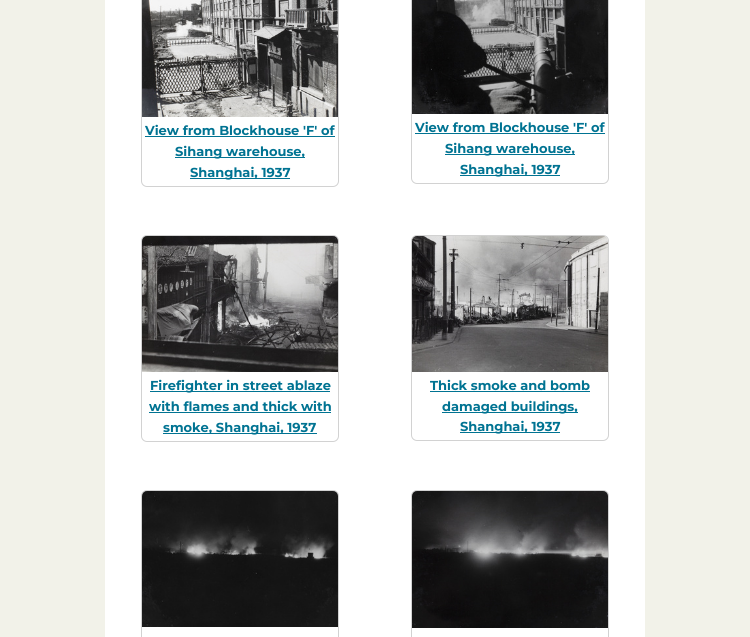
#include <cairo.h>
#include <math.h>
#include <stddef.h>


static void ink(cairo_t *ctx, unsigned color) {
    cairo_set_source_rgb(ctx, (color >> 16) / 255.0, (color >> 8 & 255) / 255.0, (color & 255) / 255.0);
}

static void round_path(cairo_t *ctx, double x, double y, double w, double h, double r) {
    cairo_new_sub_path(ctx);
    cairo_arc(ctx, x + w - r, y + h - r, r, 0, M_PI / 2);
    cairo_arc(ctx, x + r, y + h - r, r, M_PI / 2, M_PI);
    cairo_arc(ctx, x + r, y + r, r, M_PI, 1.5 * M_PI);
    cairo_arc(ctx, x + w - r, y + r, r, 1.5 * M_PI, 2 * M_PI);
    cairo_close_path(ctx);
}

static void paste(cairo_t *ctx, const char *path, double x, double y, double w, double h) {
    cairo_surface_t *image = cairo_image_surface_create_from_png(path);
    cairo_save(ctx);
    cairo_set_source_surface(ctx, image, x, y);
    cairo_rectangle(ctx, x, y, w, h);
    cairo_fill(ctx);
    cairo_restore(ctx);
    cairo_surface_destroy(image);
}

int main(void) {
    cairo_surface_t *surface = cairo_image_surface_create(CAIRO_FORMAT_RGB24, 750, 637);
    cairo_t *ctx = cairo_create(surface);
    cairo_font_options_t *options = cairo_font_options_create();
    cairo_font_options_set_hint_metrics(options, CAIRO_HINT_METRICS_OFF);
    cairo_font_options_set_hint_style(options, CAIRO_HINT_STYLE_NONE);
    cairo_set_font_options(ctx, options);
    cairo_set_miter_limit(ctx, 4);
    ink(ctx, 0xF2F2E9);
    cairo_paint(ctx);
    ink(ctx, 0xFFFFFF);
    cairo_rectangle(ctx, 105, 0, 540, 637);
    cairo_fill(ctx);
    round_path(ctx, 141.5, -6.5, 197, 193, 5.5);
    ink(ctx, 0xD2D2D2);
    cairo_set_line_width(ctx, 1);
    cairo_stroke(ctx);
    paste(ctx, "media/1.png", 142, 0, 196, 117);
    cairo_select_font_face(ctx, "Montserrat", CAIRO_FONT_SLANT_NORMAL, CAIRO_FONT_WEIGHT_BOLD);
    cairo_set_font_size(ctx, 13);
    ink(ctx, 0x007392);
    cairo_move_to(ctx, 145, 135);
    cairo_show_text(ctx, "View from Blockhouse 'F' of");
    cairo_rectangle(ctx, 145, 136, 190, 1);
    cairo_fill(ctx);
    cairo_rectangle(ctx, 175, 157, 130, 1);
    cairo_fill(ctx);
    cairo_move_to(ctx, 175, 156);
    cairo_show_text(ctx, "Sihang warehouse,");
    cairo_rectangle(ctx, 190, 178, 100, 1);
    cairo_fill(ctx);
    cairo_move_to(ctx, 190, 177);
    cairo_show_text(ctx, "Shanghai, 1937");
    round_path(ctx, 411.5, -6.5, 197, 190, 5.5);
    ink(ctx, 0xD2D2D2);
    cairo_stroke(ctx);
    paste(ctx, "media/2.png", 412, 0, 196, 114);
    ink(ctx, 0x007392);
    cairo_move_to(ctx, 415, 132);
    cairo_show_text(ctx, "View from Blockhouse 'F' of");
    cairo_rectangle(ctx, 415, 133, 190, 1);
    cairo_fill(ctx);
    cairo_rectangle(ctx, 445, 154, 130, 1);
    cairo_fill(ctx);
    cairo_move_to(ctx, 445, 153);
    cairo_show_text(ctx, "Sihang warehouse,");
    cairo_rectangle(ctx, 460, 175, 100, 1);
    cairo_fill(ctx);
    cairo_move_to(ctx, 460, 174);
    cairo_show_text(ctx, "Shanghai, 1937");
    round_path(ctx, 141.5, 235.5, 197, 206, 5.5);
    ink(ctx, 0xD2D2D2);
    cairo_stroke(ctx);
    paste(ctx, "media/3.png", 142, 236, 196, 136);
    ink(ctx, 0x007392);
    cairo_rectangle(ctx, 150, 391, 180, 1);
    cairo_fill(ctx);
    cairo_move_to(ctx, 150, 390);
    cairo_show_text(ctx, "Firefighter in street ablaze");
    cairo_move_to(ctx, 149, 411);
    cairo_show_text(ctx, "with flames and thick with");
    cairo_rectangle(ctx, 149, 412, 182, 1);
    cairo_fill(ctx);
    cairo_rectangle(ctx, 163, 433, 154, 1);
    cairo_fill(ctx);
    cairo_move_to(ctx, 163, 432);
    cairo_show_text(ctx, "smoke, Shanghai, 1937");
    round_path(ctx, 411.5, 235.5, 197, 205, 5.5);
    ink(ctx, 0xD2D2D2);
    cairo_stroke(ctx);
    paste(ctx, "media/4.png", 412, 236, 196, 136);
    ink(ctx, 0x007392);
    cairo_move_to(ctx, 430, 390);
    cairo_show_text(ctx, "Thick smoke and bomb");
    cairo_rectangle(ctx, 430, 391, 160, 1);
    cairo_fill(ctx);
    cairo_rectangle(ctx, 442, 412, 136, 1);
    cairo_fill(ctx);
    cairo_move_to(ctx, 442, 411);
    cairo_show_text(ctx, "damaged buildings,");
    cairo_rectangle(ctx, 460, 432, 100, 1);
    cairo_fill(ctx);
    cairo_move_to(ctx, 460, 431);
    cairo_show_text(ctx, "Shanghai, 1937");
    round_path(ctx, 141.5, 490.5, 197, 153, 5.5);
    ink(ctx, 0xD2D2D2);
    cairo_stroke(ctx);
    paste(ctx, "media/5.png", 142, 491, 196, 136);
    round_path(ctx, 411.5, 490.5, 197, 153, 5.5);
    cairo_stroke(ctx);
    paste(ctx, "media/6.png", 412, 491, 196, 137);
    cairo_surface_write_to_png(surface, "image.png");
    cairo_font_options_destroy(options);
    cairo_destroy(ctx);
    cairo_surface_destroy(surface);
    return 0;
}
